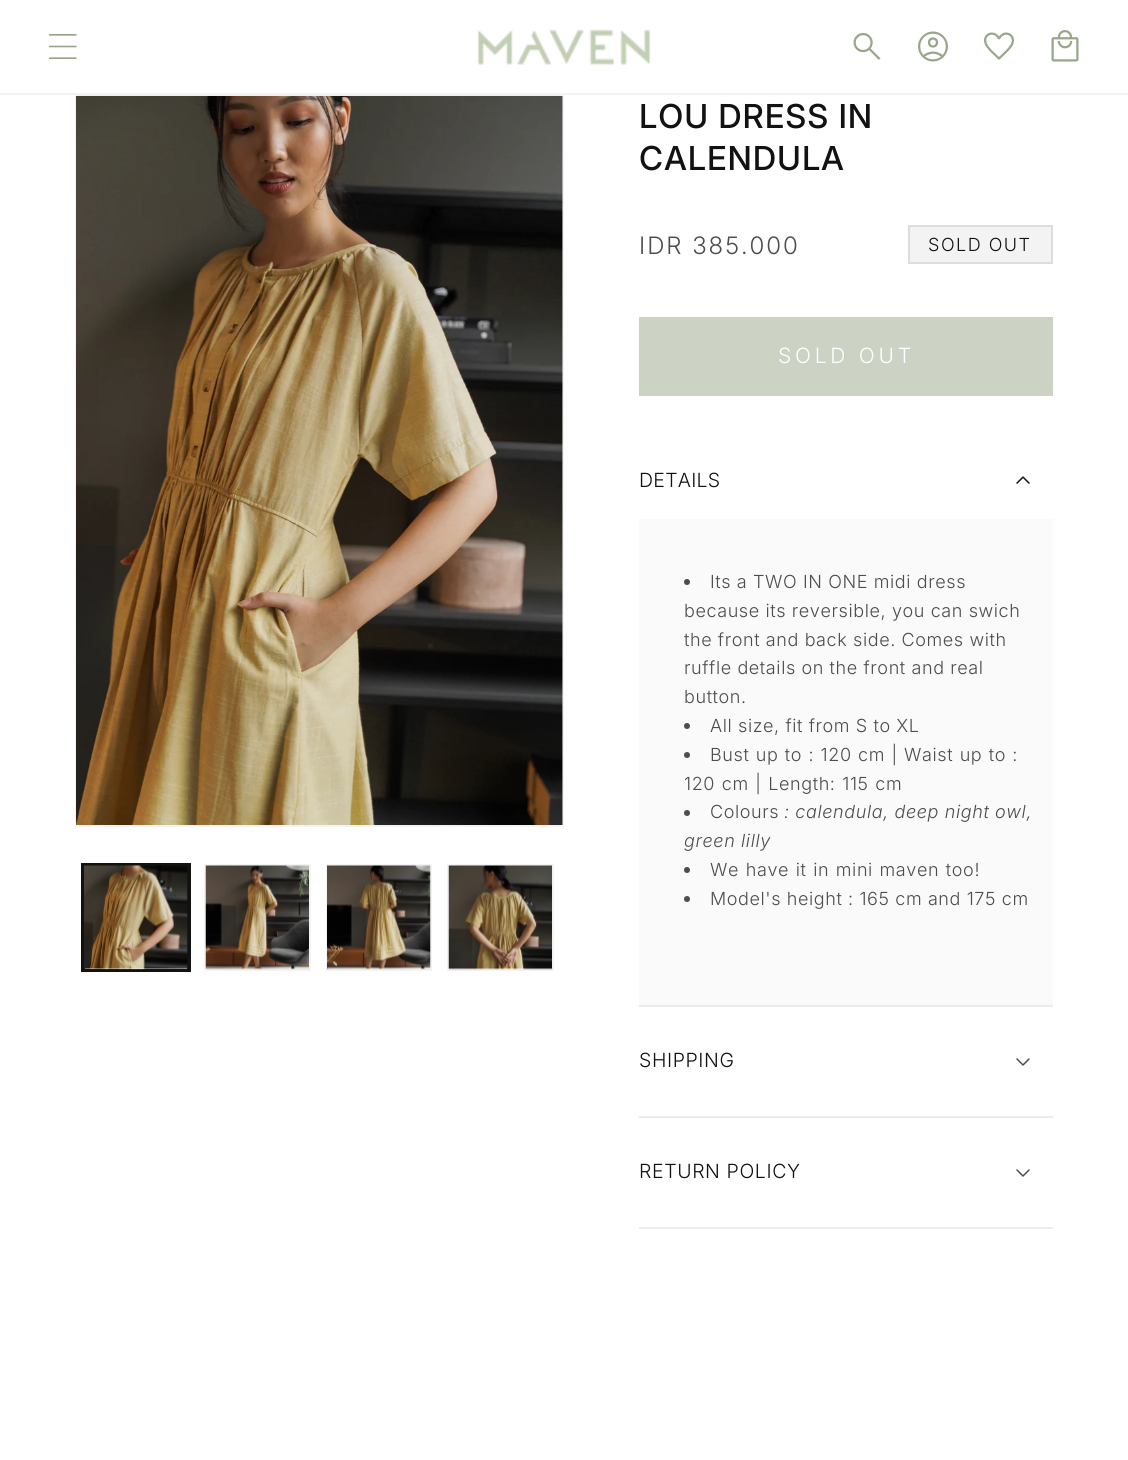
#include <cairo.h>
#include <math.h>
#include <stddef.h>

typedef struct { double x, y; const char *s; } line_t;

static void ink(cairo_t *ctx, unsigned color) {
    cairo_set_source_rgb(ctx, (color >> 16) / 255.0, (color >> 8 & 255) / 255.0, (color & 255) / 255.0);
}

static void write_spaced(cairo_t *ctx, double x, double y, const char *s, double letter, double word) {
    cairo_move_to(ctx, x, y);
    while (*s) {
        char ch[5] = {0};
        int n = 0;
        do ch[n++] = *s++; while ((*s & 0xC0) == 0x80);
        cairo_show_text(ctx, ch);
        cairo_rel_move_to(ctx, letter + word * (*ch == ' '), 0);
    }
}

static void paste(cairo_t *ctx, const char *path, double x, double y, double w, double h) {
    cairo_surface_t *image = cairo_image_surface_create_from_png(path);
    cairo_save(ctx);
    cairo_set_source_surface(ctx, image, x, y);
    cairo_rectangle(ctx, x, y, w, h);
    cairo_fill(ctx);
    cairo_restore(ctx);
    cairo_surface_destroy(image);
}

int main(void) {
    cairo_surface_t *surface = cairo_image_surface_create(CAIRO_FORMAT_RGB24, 1128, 1460);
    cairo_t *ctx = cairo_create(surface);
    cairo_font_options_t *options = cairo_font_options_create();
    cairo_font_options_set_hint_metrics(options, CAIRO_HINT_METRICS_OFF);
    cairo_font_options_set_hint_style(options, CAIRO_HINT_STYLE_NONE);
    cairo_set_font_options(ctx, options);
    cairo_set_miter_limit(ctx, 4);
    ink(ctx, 0xFFFFFF);
    cairo_paint(ctx);
    ink(ctx, 0xF3F3F3);
    cairo_rectangle(ctx, 0, 93, 1128, 2);
    cairo_fill(ctx);
    paste(ctx, "media/1.png", 48, 34, 29, 25);
    paste(ctx, "media/2.png", 477, 29, 174, 36);
    paste(ctx, "media/3.png", 853, 33, 28, 27);
    paste(ctx, "media/4.png", 918, 31, 30, 31);
    paste(ctx, "media/5.png", 984, 32, 30, 28);
    paste(ctx, "media/6.png", 1051, 30, 28, 32);
    cairo_rectangle(ctx, 76, 96, 487, 730);
    cairo_stroke(ctx);
    paste(ctx, "media/7.png", 76, 96, 487, 729);
    cairo_rectangle(ctx, 82, 864, 108, 107);
    ink(ctx, 0x121212);
    cairo_stroke(ctx);
    cairo_rectangle(ctx, 84, 865, 104, 105);
    cairo_stroke(ctx);
    paste(ctx, "media/8.png", 84, 865, 104, 105);
    cairo_rectangle(ctx, 205, 865, 105, 105);
    ink(ctx, 0xF3F3F3);
    cairo_stroke(ctx);
    paste(ctx, "media/9.png", 205, 865, 104, 105);
    cairo_rectangle(ctx, 327, 865, 104, 105);
    cairo_stroke(ctx);
    paste(ctx, "media/10.png", 327, 865, 104, 105);
    cairo_rectangle(ctx, 448, 865, 105, 105);
    cairo_stroke(ctx);
    paste(ctx, "media/11.png", 448, 865, 104, 105);
    cairo_select_font_face(ctx, "Inter Medium", CAIRO_FONT_SLANT_NORMAL, CAIRO_FONT_WEIGHT_NORMAL);
    cairo_set_font_size(ctx, 33);
    ink(ctx, 0x121212);
    write_spaced(ctx, 639, 128, "LOU DRESS IN", 0.9, 0);
    write_spaced(ctx, 639, 170, "CALENDULA", 0.9, 0);
    cairo_select_font_face(ctx, "Inter Light", CAIRO_FONT_SLANT_NORMAL, CAIRO_FONT_WEIGHT_NORMAL);
    cairo_set_font_size(ctx, 24);
    ink(ctx, 0x4D4D4D);
    write_spaced(ctx, 639, 254, "IDR 385.000", 2, 0);
    ink(ctx, 0xF3F3F3);
    cairo_rectangle(ctx, 909, 226, 143, 37);
    cairo_fill_preserve(ctx);
    ink(ctx, 0xDDDDDD);
    cairo_stroke(ctx);
    cairo_select_font_face(ctx, "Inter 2 Light", CAIRO_FONT_SLANT_NORMAL, CAIRO_FONT_WEIGHT_NORMAL);
    cairo_set_font_size(ctx, 18);
    ink(ctx, 0x121212);
    write_spaced(ctx, 928, 251, "SOLD OUT", 1.5, 0);
    ink(ctx, 0xCCD3C5);
    cairo_rectangle(ctx, 639, 317, 414, 79);
    cairo_fill(ctx);
    cairo_set_font_size(ctx, 21);
    ink(ctx, 0xFFFFFF);
    write_spaced(ctx, 778, 363, "SOLD OUT", 3.75, 0);
    cairo_set_font_size(ctx, 19.5);
    ink(ctx, 0x121212);
    write_spaced(ctx, 639, 487, "DETAILS", 0.25, 0);
    paste(ctx, "media/12.png", 1016, 476, 14, 8);
    ink(ctx, 0xFAFAFA);
    cairo_rectangle(ctx, 639, 519, 414, 486);
    cairo_fill(ctx);
    ink(ctx, 0x4C4C4C);
    cairo_arc(ctx, 687, 582, 3, 0, 2 * M_PI);
    cairo_fill(ctx);
    cairo_set_font_size(ctx, 18);
    ink(ctx, 0x4D4D4D);
    {
        static const line_t items[] = {
            {710, 588, "Its a TWO IN ONE midi dress"},
            {684, 617, "because its reversible, you can swich"},
            {684, 646, "the front and back side. Comes with"},
            {684, 674, "ruffle details on the front and real"},
            {684, 703, "button."},
        };
        for (size_t i = 0; i < sizeof items / sizeof *items; i++) {
            write_spaced(ctx, items[i].x, items[i].y, items[i].s, 0.6, 0);
        }
    }
    ink(ctx, 0x4C4C4C);
    cairo_new_path(ctx);
    cairo_arc(ctx, 687, 726, 3, 0, 2 * M_PI);
    cairo_fill(ctx);
    ink(ctx, 0x4D4D4D);
    write_spaced(ctx, 710, 732, "All size, fit from S to XL", 0.6, 0);
    ink(ctx, 0x4C4C4C);
    cairo_new_path(ctx);
    cairo_arc(ctx, 687, 755, 3, 0, 2 * M_PI);
    cairo_fill(ctx);
    ink(ctx, 0x4D4D4D);
    write_spaced(ctx, 710, 761, "Bust up to : 120 cm | Waist up to :", 0.6, 0.75);
    write_spaced(ctx, 684, 790, "120 cm | Length: 115 cm", 0.6, 1);
    ink(ctx, 0x4C4C4C);
    cairo_new_path(ctx);
    cairo_arc(ctx, 687, 813, 3, 0, 2 * M_PI);
    cairo_fill(ctx);
    ink(ctx, 0x4D4D4D);
    write_spaced(ctx, 710, 818, "Colours", 0.6, 0);
    cairo_select_font_face(ctx, "Inter Light", CAIRO_FONT_SLANT_ITALIC, CAIRO_FONT_WEIGHT_NORMAL);
    write_spaced(ctx, 784, 818, ": calendula, deep night owl,", 0.6, 0);
    write_spaced(ctx, 684, 847, "green lilly", 0.6, 0);
    ink(ctx, 0x4C4C4C);
    cairo_new_path(ctx);
    cairo_arc(ctx, 687, 870, 3, 0, 2 * M_PI);
    cairo_fill(ctx);
    cairo_select_font_face(ctx, "Inter 2 Light", CAIRO_FONT_SLANT_NORMAL, CAIRO_FONT_WEIGHT_NORMAL);
    ink(ctx, 0x4D4D4D);
    write_spaced(ctx, 710, 876, "We have it in mini maven too!", 0.6, 1);
    ink(ctx, 0x4C4C4C);
    cairo_new_path(ctx);
    cairo_arc(ctx, 687, 899, 3, 0, 2 * M_PI);
    cairo_fill(ctx);
    ink(ctx, 0x4D4D4D);
    write_spaced(ctx, 710, 905, "Model's height : 165 cm and 175 cm", 0.6, 0);
    ink(ctx, 0xECECEC);
    cairo_rectangle(ctx, 639, 1005, 414, 2);
    cairo_fill(ctx);
    cairo_rectangle(ctx, 639, 1116, 414, 2);
    cairo_fill(ctx);
    cairo_set_font_size(ctx, 19.5);
    ink(ctx, 0x121212);
    write_spaced(ctx, 639, 1067, "SHIPPING", 0.6, 0);
    paste(ctx, "media/13.png", 1016, 1058, 14, 8);
    ink(ctx, 0xECECEC);
    cairo_rectangle(ctx, 639, 1227, 414, 2);
    cairo_fill(ctx);
    ink(ctx, 0x121212);
    write_spaced(ctx, 639, 1178, "RETURN POLICY", 0.6, 0);
    paste(ctx, "media/13.png", 1016, 1169, 14, 8);
    cairo_surface_write_to_png(surface, "image.png");
    cairo_font_options_destroy(options);
    cairo_destroy(ctx);
    cairo_surface_destroy(surface);
    return 0;
}
